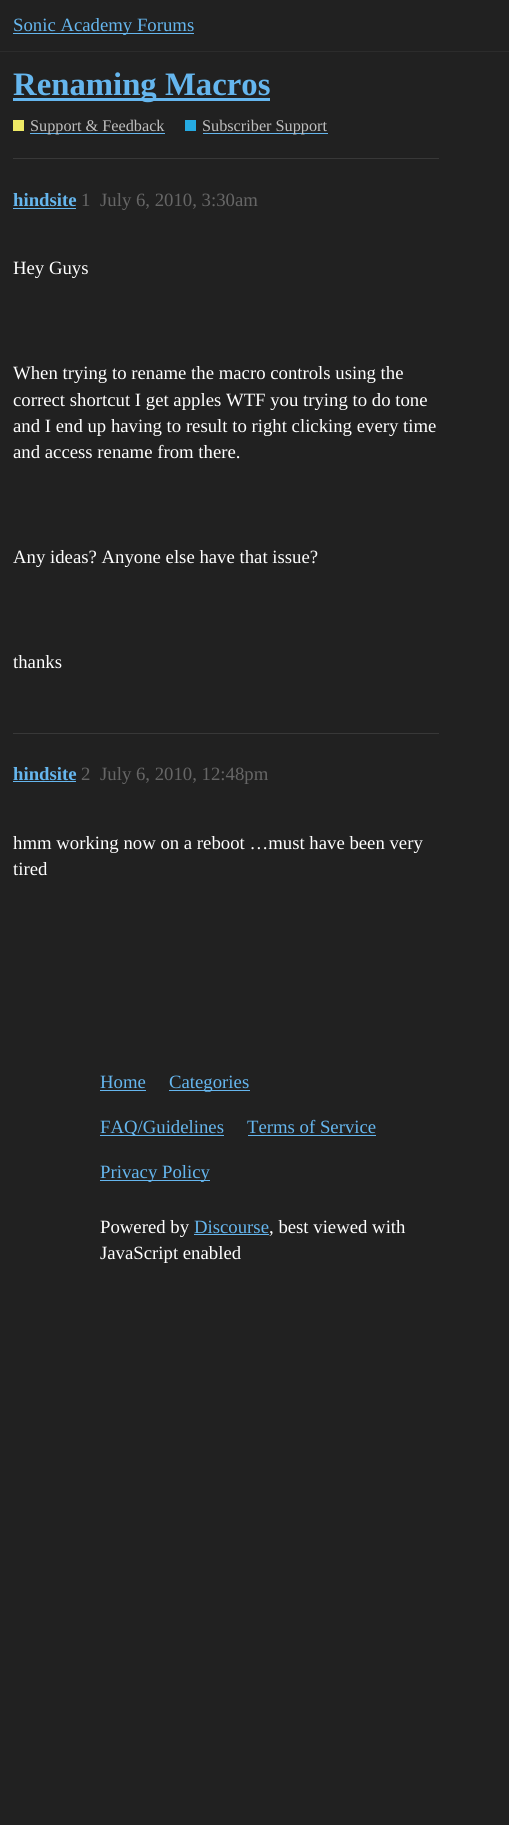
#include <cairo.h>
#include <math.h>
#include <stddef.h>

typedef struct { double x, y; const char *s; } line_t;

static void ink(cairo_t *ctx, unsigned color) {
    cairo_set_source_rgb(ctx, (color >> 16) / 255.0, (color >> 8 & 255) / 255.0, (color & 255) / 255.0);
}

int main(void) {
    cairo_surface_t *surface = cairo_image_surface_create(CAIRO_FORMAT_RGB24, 509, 1825);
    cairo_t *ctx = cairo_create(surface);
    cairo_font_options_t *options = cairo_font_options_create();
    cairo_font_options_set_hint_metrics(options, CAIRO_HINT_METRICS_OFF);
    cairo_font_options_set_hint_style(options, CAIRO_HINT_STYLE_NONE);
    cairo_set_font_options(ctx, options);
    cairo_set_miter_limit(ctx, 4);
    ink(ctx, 0x212121);
    cairo_paint(ctx);
    ink(ctx, 0x2C2C2C);
    cairo_rectangle(ctx, 0, 51, 509, 1);
    cairo_fill(ctx);
    ink(ctx, 0x65B6EE);
    cairo_rectangle(ctx, 13, 33, 181, 1);
    cairo_fill(ctx);
    cairo_select_font_face(ctx, "Liberation Serif", CAIRO_FONT_SLANT_NORMAL, CAIRO_FONT_WEIGHT_NORMAL);
    cairo_set_font_size(ctx, 18.75);
    cairo_move_to(ctx, 13, 31);
    cairo_show_text(ctx, "Sonic Academy Forums");
    cairo_rectangle(ctx, 13, 98, 257, 3);
    cairo_fill(ctx);
    cairo_select_font_face(ctx, "Liberation Serif", CAIRO_FONT_SLANT_NORMAL, CAIRO_FONT_WEIGHT_BOLD);
    cairo_set_font_size(ctx, 32.75);
    cairo_move_to(ctx, 13, 95);
    cairo_show_text(ctx, "Renaming Macros");
    ink(ctx, 0xEEE965);
    cairo_rectangle(ctx, 13, 120, 11, 11);
    cairo_fill(ctx);
    ink(ctx, 0x65B6EE);
    cairo_rectangle(ctx, 30, 133, 135, 1);
    cairo_fill(ctx);
    cairo_select_font_face(ctx, "Liberation Serif", CAIRO_FONT_SLANT_NORMAL, CAIRO_FONT_WEIGHT_NORMAL);
    cairo_set_font_size(ctx, 16.25);
    ink(ctx, 0xBFBFBF);
    cairo_move_to(ctx, 30, 131);
    cairo_show_text(ctx, "Support & Feedback");
    ink(ctx, 0x25AAE2);
    cairo_rectangle(ctx, 185, 120, 11, 11);
    cairo_fill(ctx);
    ink(ctx, 0x65B6EE);
    cairo_rectangle(ctx, 203, 133, 125, 1);
    cairo_fill(ctx);
    ink(ctx, 0xBFBFBF);
    cairo_move_to(ctx, 202, 131);
    cairo_show_text(ctx, "Subscriber Support");
    ink(ctx, 0x383838);
    cairo_rectangle(ctx, 13, 158, 426, 1);
    cairo_fill(ctx);
    cairo_select_font_face(ctx, "Liberation Serif", CAIRO_FONT_SLANT_NORMAL, CAIRO_FONT_WEIGHT_BOLD);
    cairo_set_font_size(ctx, 18.75);
    ink(ctx, 0x65B6EE);
    cairo_move_to(ctx, 13, 206);
    cairo_show_text(ctx, "hindsite");
    cairo_rectangle(ctx, 13, 208, 63, 1);
    cairo_fill(ctx);
    cairo_select_font_face(ctx, "Liberation Serif", CAIRO_FONT_SLANT_NORMAL, CAIRO_FONT_WEIGHT_NORMAL);
    ink(ctx, 0x666666);
    cairo_move_to(ctx, 81, 206);
    cairo_show_text(ctx, "1");
    cairo_move_to(ctx, 100, 206);
    cairo_show_text(ctx, "July 6, 2010, 3:30am");
    ink(ctx, 0xFFFFFF);
    {
        static const line_t items[] = {
            {13, 274, "Hey Guys"},
            {13, 379, "When trying to rename the macro controls using the"},
            {13, 406, "correct shortcut I get apples WTF you trying to do tone"},
            {13, 432, "and I end up having to result to right clicking every time"},
            {13, 458, "and access rename from there."},
            {13, 563, "Any ideas? Anyone else have that issue?"},
            {13, 668, "thanks"},
        };
        for (size_t i = 0; i < sizeof items / sizeof *items; i++) {
            cairo_move_to(ctx, items[i].x, items[i].y);
            cairo_show_text(ctx, items[i].s);
        }
    }
    ink(ctx, 0x383838);
    cairo_rectangle(ctx, 13, 733, 426, 1);
    cairo_fill(ctx);
    cairo_select_font_face(ctx, "Liberation Serif", CAIRO_FONT_SLANT_NORMAL, CAIRO_FONT_WEIGHT_BOLD);
    ink(ctx, 0x65B6EE);
    cairo_move_to(ctx, 13, 780);
    cairo_show_text(ctx, "hindsite");
    cairo_rectangle(ctx, 13, 781, 63, 1);
    cairo_fill(ctx);
    cairo_select_font_face(ctx, "Liberation Serif", CAIRO_FONT_SLANT_NORMAL, CAIRO_FONT_WEIGHT_NORMAL);
    ink(ctx, 0x666666);
    cairo_move_to(ctx, 81, 780);
    cairo_show_text(ctx, "2");
    cairo_move_to(ctx, 100, 780);
    cairo_show_text(ctx, "July 6, 2010, 12:48pm");
    ink(ctx, 0xFFFFFF);
    cairo_move_to(ctx, 13, 849);
    cairo_show_text(ctx, "hmm working now on a reboot …must have been very");
    cairo_move_to(ctx, 13, 875);
    cairo_show_text(ctx, "tired");
    ink(ctx, 0x65B6EE);
    cairo_move_to(ctx, 100, 1088);
    cairo_show_text(ctx, "Home");
    cairo_rectangle(ctx, 100, 1090, 46, 1);
    cairo_fill(ctx);
    cairo_rectangle(ctx, 169, 1090, 81, 1);
    cairo_fill(ctx);
    cairo_move_to(ctx, 169, 1088);
    cairo_show_text(ctx, "Categories");
    cairo_rectangle(ctx, 100, 1135, 124, 1);
    cairo_fill(ctx);
    cairo_move_to(ctx, 100, 1133);
    cairo_show_text(ctx, "FAQ/Guidelines");
    cairo_move_to(ctx, 247, 1133);
    cairo_show_text(ctx, "Terms of Service");
    cairo_rectangle(ctx, 248, 1135, 128, 1);
    cairo_fill(ctx);
    cairo_rectangle(ctx, 100, 1180, 110, 1);
    cairo_fill(ctx);
    cairo_move_to(ctx, 100, 1178);
    cairo_show_text(ctx, "Privacy Policy");
    ink(ctx, 0xFFFFFF);
    cairo_move_to(ctx, 100, 1233);
    cairo_show_text(ctx, "Powered by");
    ink(ctx, 0x65B6EE);
    cairo_move_to(ctx, 194, 1233);
    cairo_show_text(ctx, "Discourse");
    cairo_rectangle(ctx, 194, 1234, 75, 1);
    cairo_fill(ctx);
    ink(ctx, 0xFFFFFF);
    cairo_move_to(ctx, 269, 1233);
    cairo_show_text(ctx, ", best viewed with");
    cairo_move_to(ctx, 100, 1259);
    cairo_show_text(ctx, "JavaScript enabled");
    cairo_surface_write_to_png(surface, "image.png");
    cairo_font_options_destroy(options);
    cairo_destroy(ctx);
    cairo_surface_destroy(surface);
    return 0;
}
